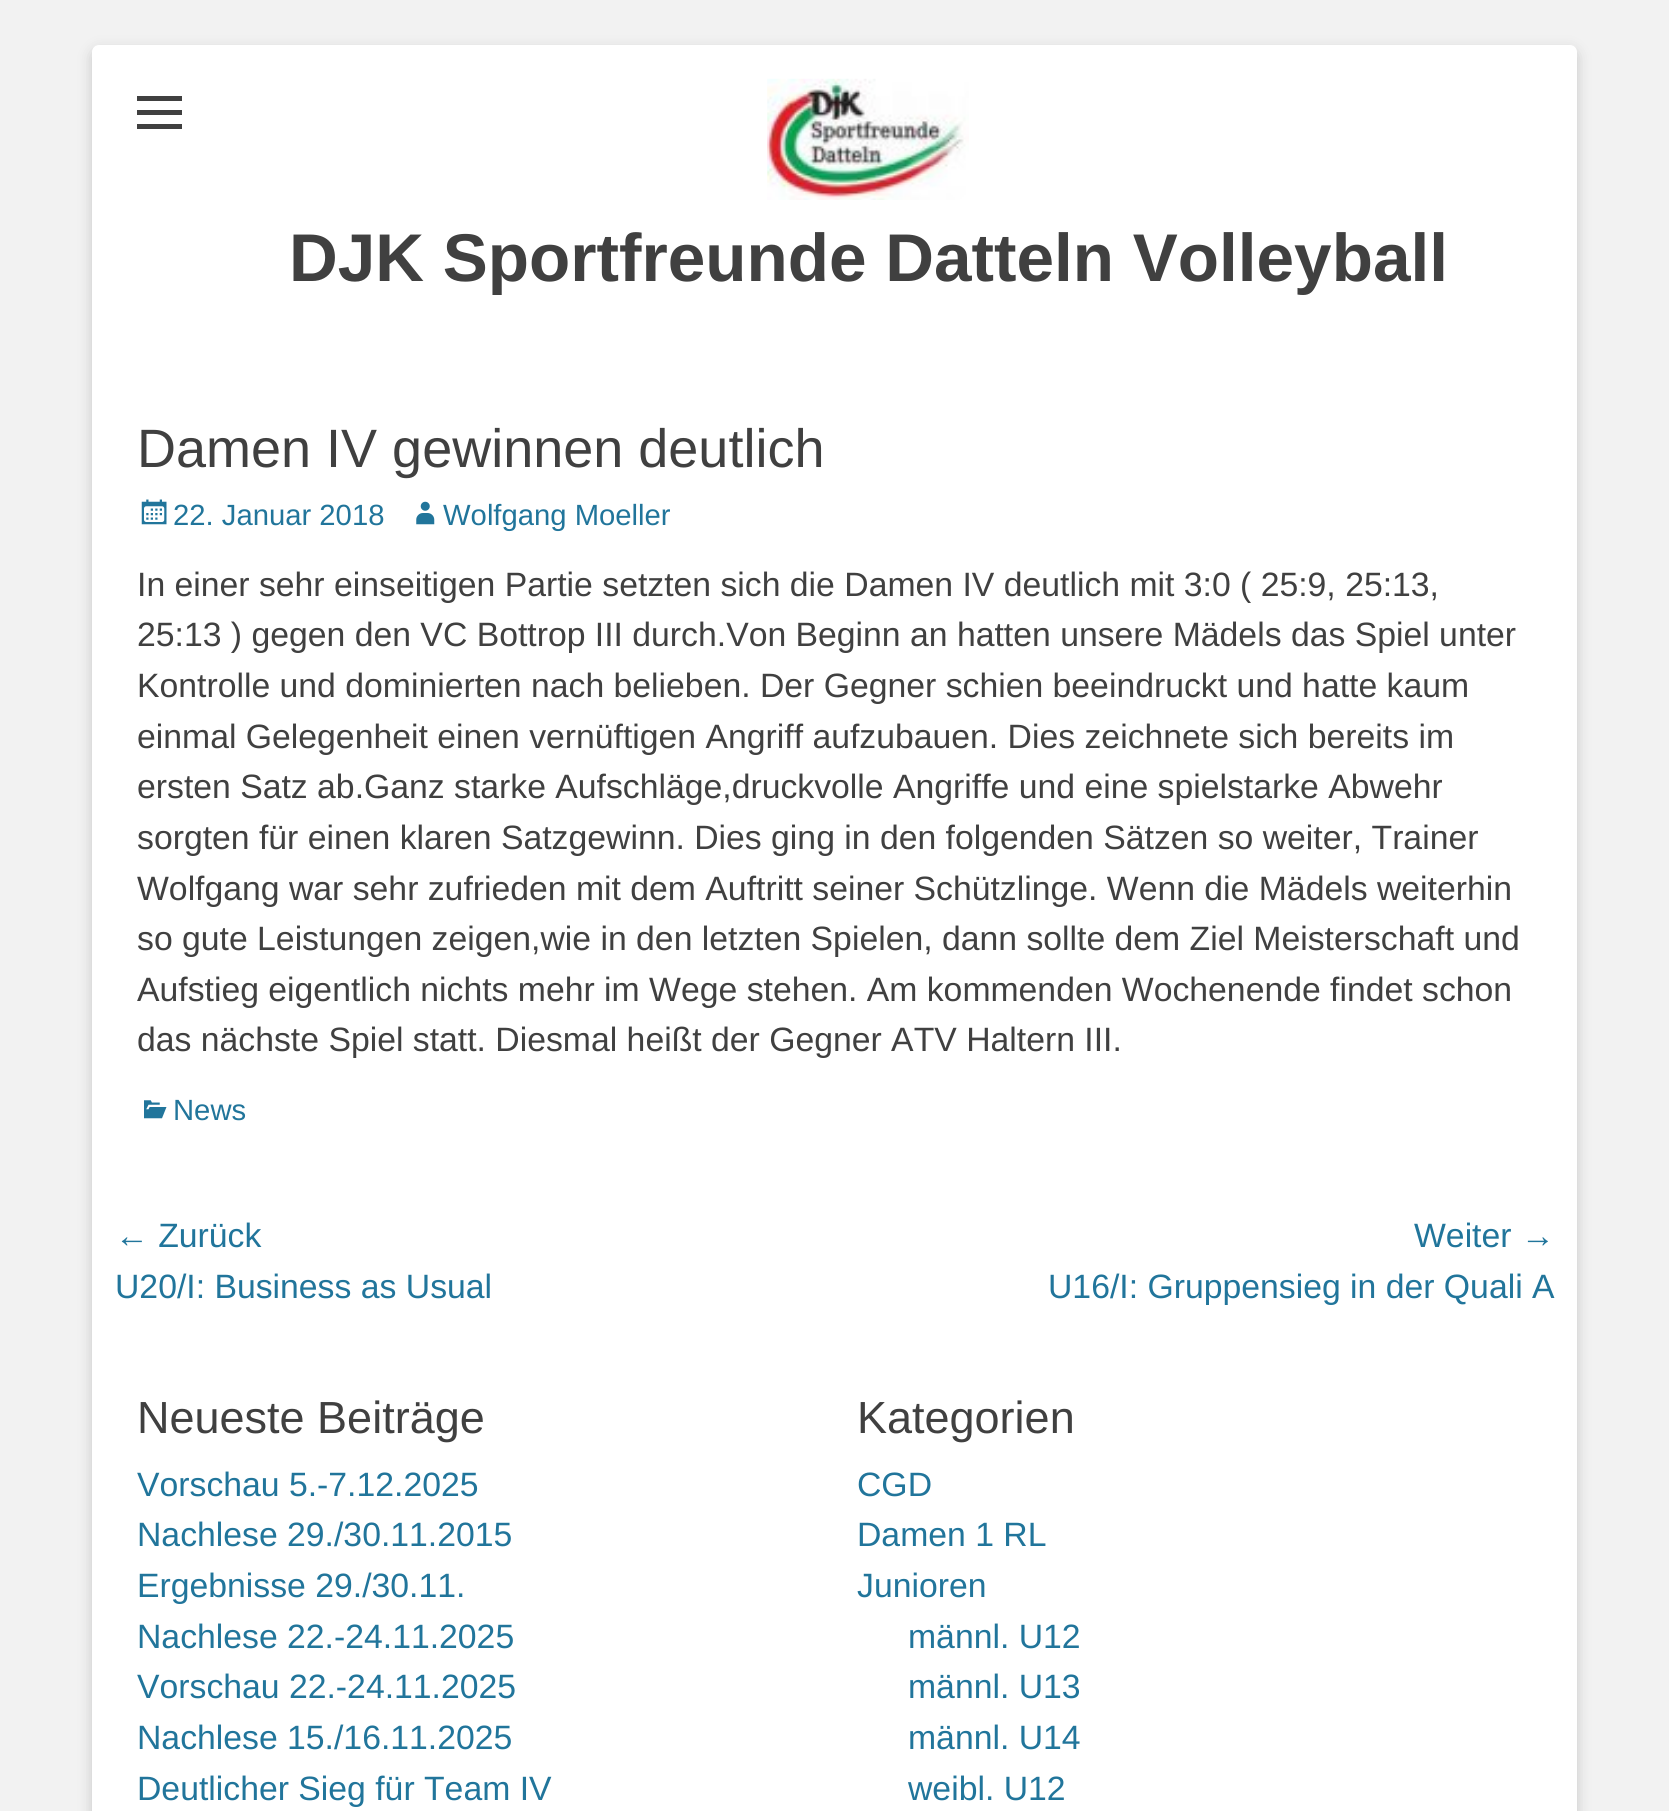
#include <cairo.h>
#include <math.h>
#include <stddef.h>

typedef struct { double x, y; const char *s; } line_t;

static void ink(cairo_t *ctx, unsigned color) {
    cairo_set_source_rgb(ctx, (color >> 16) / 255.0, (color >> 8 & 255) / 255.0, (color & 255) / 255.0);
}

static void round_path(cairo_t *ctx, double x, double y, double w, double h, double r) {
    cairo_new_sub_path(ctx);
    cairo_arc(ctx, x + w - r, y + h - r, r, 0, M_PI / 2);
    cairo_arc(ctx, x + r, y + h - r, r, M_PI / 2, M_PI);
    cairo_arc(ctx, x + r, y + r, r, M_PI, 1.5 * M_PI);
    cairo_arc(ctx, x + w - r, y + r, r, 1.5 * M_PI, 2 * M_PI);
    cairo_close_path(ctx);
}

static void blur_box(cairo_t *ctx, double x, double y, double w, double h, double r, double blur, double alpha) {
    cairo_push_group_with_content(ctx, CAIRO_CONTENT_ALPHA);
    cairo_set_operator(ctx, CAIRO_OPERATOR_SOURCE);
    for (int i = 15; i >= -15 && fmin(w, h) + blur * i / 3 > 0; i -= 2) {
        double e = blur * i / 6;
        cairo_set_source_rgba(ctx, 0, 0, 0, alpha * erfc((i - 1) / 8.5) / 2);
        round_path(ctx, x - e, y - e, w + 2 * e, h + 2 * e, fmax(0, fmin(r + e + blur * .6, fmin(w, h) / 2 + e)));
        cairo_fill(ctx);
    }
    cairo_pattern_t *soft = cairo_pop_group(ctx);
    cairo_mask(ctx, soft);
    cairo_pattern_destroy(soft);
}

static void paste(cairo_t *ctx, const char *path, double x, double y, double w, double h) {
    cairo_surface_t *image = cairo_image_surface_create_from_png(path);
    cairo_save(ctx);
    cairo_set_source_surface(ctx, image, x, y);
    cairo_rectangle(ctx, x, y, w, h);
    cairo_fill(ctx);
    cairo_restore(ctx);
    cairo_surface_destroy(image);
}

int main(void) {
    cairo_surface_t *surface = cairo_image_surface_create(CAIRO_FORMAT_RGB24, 1669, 1811);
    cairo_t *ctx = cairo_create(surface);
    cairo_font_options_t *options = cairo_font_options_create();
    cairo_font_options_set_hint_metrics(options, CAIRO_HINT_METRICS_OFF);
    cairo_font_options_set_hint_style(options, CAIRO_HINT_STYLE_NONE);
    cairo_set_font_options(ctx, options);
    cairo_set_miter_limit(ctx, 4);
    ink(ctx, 0xF2F2F2);
    cairo_paint(ctx);
    ink(ctx, 0x646464);
    blur_box(ctx, 92, 50, 1485, 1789, 7, 7, 0.3);
    ink(ctx, 0xFFFFFF);
    round_path(ctx, 92, 45, 1485, 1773, 7);
    cairo_fill(ctx);
    ink(ctx, 0x404040);
    cairo_new_path(ctx);
    cairo_move_to(ctx, 137, 129);
    cairo_line_to(ctx, 137, 124);
    cairo_line_to(ctx, 182, 124);
    cairo_line_to(ctx, 182, 129);
    cairo_close_path(ctx);
    cairo_move_to(ctx, 137, 96);
    cairo_line_to(ctx, 182, 96);
    cairo_line_to(ctx, 182, 101);
    cairo_line_to(ctx, 137, 101);
    cairo_close_path(ctx);
    cairo_move_to(ctx, 137, 115);
    cairo_line_to(ctx, 137, 110);
    cairo_line_to(ctx, 182, 110);
    cairo_line_to(ctx, 182, 115);
    cairo_close_path(ctx);
    cairo_fill(ctx);
    paste(ctx, "media/1.png", 767, 78, 202, 122);
    cairo_select_font_face(ctx, "Liberation Sans", CAIRO_FONT_SLANT_NORMAL, CAIRO_FONT_WEIGHT_BOLD);
    cairo_set_font_size(ctx, 67.5);
    cairo_move_to(ctx, 289, 281);
    cairo_show_text(ctx, "DJK Sportfreunde Datteln Volleyball");
    cairo_select_font_face(ctx, "Liberation Sans", CAIRO_FONT_SLANT_NORMAL, CAIRO_FONT_WEIGHT_NORMAL);
    cairo_set_font_size(ctx, 54);
    cairo_move_to(ctx, 137, 467);
    cairo_show_text(ctx, "Damen IV gewinnen deutlich");
    paste(ctx, "media/2.png", 141, 499, 26, 26);
    cairo_set_font_size(ctx, 29.25);
    ink(ctx, 0x21759B);
    cairo_move_to(ctx, 173, 525);
    cairo_show_text(ctx, "22. Januar 2018");
    paste(ctx, "media/3.png", 416, 501, 19, 24);
    cairo_move_to(ctx, 443, 525);
    cairo_show_text(ctx, "Wolfgang Moeller");
    cairo_set_font_size(ctx, 33.75);
    ink(ctx, 0x404040);
    {
        static const line_t items[] = {
            {137, 596, "In einer sehr einseitigen Partie setzten sich die Damen IV deutlich mit 3:0 ( 25:9, 25:13,"},
            {137, 646, "25:13 ) gegen den VC Bottrop III durch.Von Beginn an hatten unsere Mädels das Spiel unter"},
            {137, 697, "Kontrolle und dominierten nach belieben. Der Gegner schien beeindruckt und hatte kaum"},
            {137, 748, "einmal Gelegenheit einen vernüftigen Angriff aufzubauen. Dies zeichnete sich bereits im"},
            {137, 798, "ersten Satz ab.Ganz starke Aufschläge,druckvolle Angriffe und eine spielstarke Abwehr"},
            {137, 849, "sorgten für einen klaren Satzgewinn. Dies ging in den folgenden Sätzen so weiter, Trainer"},
            {137, 900, "Wolfgang war sehr zufrieden mit dem Auftritt seiner Schützlinge. Wenn die Mädels weiterhin"},
            {137, 950, "so gute Leistungen zeigen,wie in den letzten Spielen, dann sollte dem Ziel Meisterschaft und"},
            {137, 1001, "Aufstieg eigentlich nichts mehr im Wege stehen. Am kommenden Wochenende findet schon"},
            {137, 1051, "das nächste Spiel statt. Diesmal heißt der Gegner ATV Haltern III."},
        };
        for (size_t i = 0; i < sizeof items / sizeof *items; i++) {
            cairo_move_to(ctx, items[i].x, items[i].y);
            cairo_show_text(ctx, items[i].s);
        }
    }
    paste(ctx, "media/4.png", 144, 1100, 23, 19);
    cairo_set_font_size(ctx, 29.25);
    ink(ctx, 0x21759B);
    cairo_move_to(ctx, 173, 1120);
    cairo_show_text(ctx, "News");
    cairo_set_font_size(ctx, 33.75);
    {
        static const line_t items[] = {
            {115, 1247, "← Zurück"},
            {115, 1298, "U20/I: Business as Usual"},
            {1414, 1247, "Weiter →"},
            {1048, 1298, "U16/I: Gruppensieg in der Quali A"},
        };
        for (size_t i = 0; i < sizeof items / sizeof *items; i++) {
            cairo_move_to(ctx, items[i].x, items[i].y);
            cairo_show_text(ctx, items[i].s);
        }
    }
    cairo_set_font_size(ctx, 45);
    ink(ctx, 0x404040);
    cairo_move_to(ctx, 137, 1433);
    cairo_show_text(ctx, "Neueste Beiträge");
    cairo_set_font_size(ctx, 33.75);
    ink(ctx, 0x21759B);
    {
        static const line_t items[] = {
            {137, 1496, "Vorschau 5.-7.12.2025"},
            {137, 1546, "Nachlese 29./30.11.2015"},
            {137, 1597, "Ergebnisse 29./30.11."},
            {137, 1648, "Nachlese 22.-24.11.2025"},
            {137, 1698, "Vorschau 22.-24.11.2025"},
            {137, 1749, "Nachlese 15./16.11.2025"},
            {137, 1800, "Deutlicher Sieg für Team IV"},
        };
        for (size_t i = 0; i < sizeof items / sizeof *items; i++) {
            cairo_move_to(ctx, items[i].x, items[i].y);
            cairo_show_text(ctx, items[i].s);
        }
    }
    cairo_set_font_size(ctx, 45);
    ink(ctx, 0x404040);
    cairo_move_to(ctx, 857, 1433);
    cairo_show_text(ctx, "Kategorien");
    cairo_set_font_size(ctx, 33.75);
    ink(ctx, 0x21759B);
    {
        static const line_t items[] = {
            {857, 1496, "CGD"},
            {857, 1546, "Damen 1 RL"},
            {857, 1597, "Junioren"},
            {908, 1648, "männl. U12"},
            {908, 1698, "männl. U13"},
            {908, 1749, "männl. U14"},
            {908, 1800, "weibl. U12"},
        };
        for (size_t i = 0; i < sizeof items / sizeof *items; i++) {
            cairo_move_to(ctx, items[i].x, items[i].y);
            cairo_show_text(ctx, items[i].s);
        }
    }
    cairo_surface_write_to_png(surface, "image.png");
    cairo_font_options_destroy(options);
    cairo_destroy(ctx);
    cairo_surface_destroy(surface);
    return 0;
}
